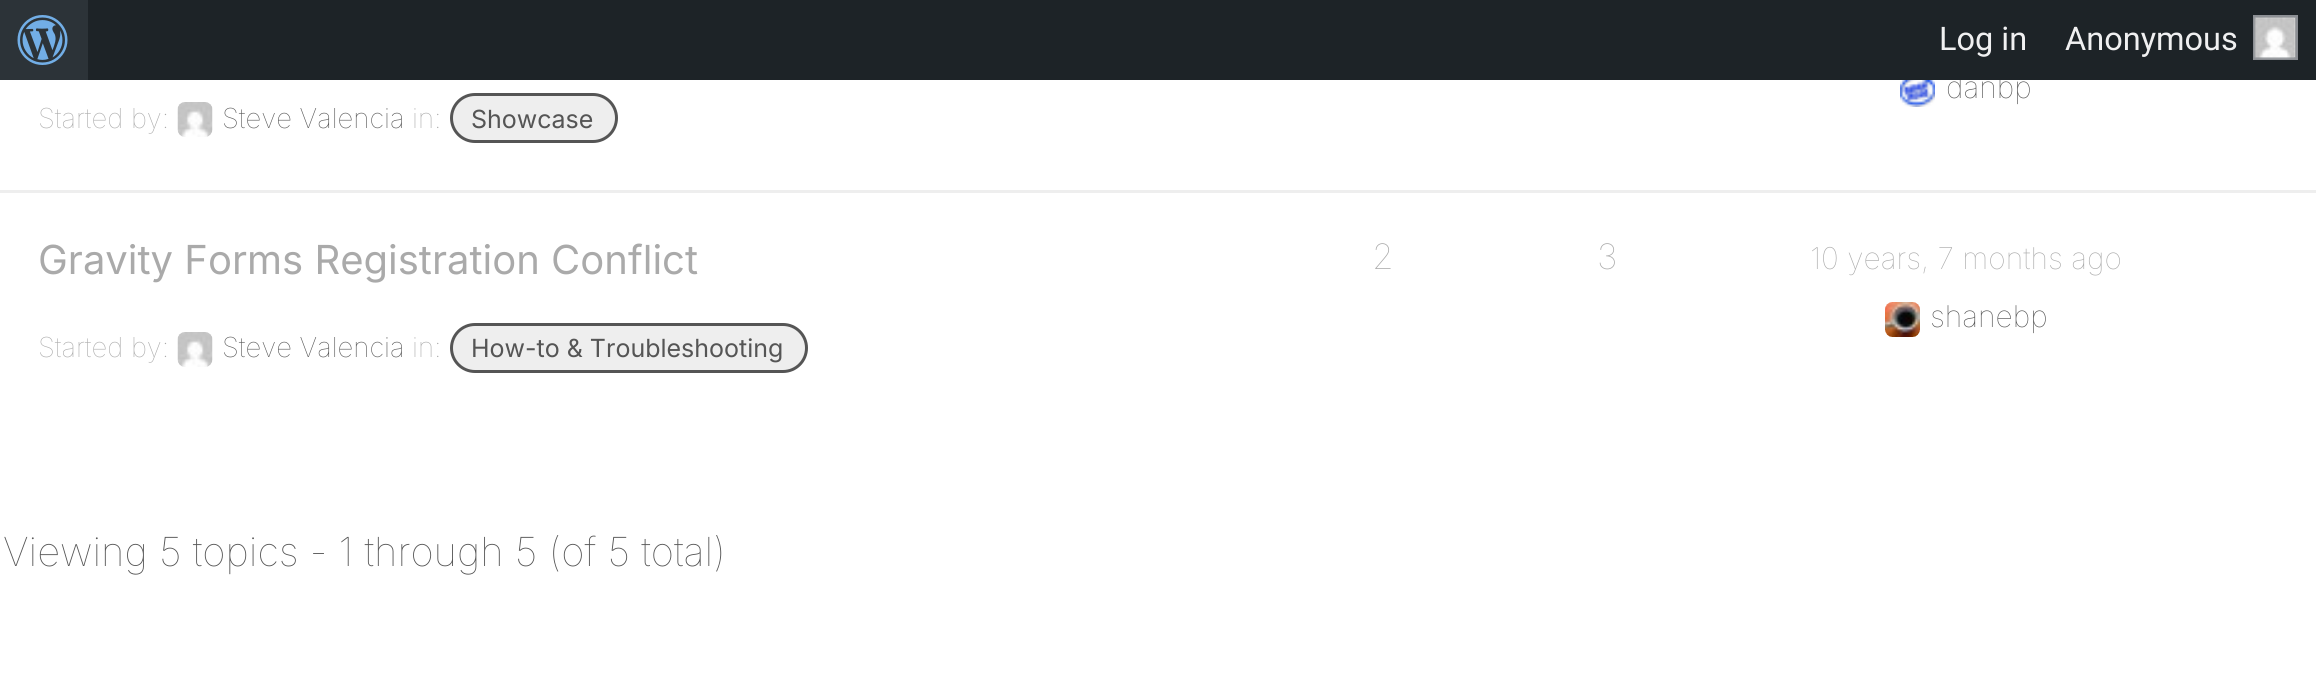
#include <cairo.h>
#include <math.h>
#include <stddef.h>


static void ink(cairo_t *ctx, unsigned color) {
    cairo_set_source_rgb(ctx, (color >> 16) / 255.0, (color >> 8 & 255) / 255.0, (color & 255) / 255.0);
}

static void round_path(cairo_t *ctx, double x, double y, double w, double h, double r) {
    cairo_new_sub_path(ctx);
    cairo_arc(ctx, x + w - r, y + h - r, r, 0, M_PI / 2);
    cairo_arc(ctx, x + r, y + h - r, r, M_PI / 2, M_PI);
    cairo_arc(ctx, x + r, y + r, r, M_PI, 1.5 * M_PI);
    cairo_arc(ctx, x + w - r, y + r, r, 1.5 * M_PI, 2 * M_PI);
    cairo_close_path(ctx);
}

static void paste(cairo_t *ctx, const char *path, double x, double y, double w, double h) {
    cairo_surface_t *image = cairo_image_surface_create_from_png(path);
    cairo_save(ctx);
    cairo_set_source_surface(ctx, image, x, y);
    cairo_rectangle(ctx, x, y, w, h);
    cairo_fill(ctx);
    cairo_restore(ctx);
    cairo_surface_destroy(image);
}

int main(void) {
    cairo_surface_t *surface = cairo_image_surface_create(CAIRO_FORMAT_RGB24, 2316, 690);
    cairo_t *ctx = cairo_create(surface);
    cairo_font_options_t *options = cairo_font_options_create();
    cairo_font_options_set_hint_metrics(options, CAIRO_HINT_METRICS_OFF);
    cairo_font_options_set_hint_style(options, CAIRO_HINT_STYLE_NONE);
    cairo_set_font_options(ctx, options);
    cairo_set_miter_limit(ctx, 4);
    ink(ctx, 0xFFFFFF);
    cairo_paint(ctx);
    cairo_select_font_face(ctx, "Inter Thin", CAIRO_FONT_SLANT_NORMAL, CAIRO_FONT_WEIGHT_NORMAL);
    cairo_set_font_size(ctx, 30);
    ink(ctx, 0x555555);
    cairo_move_to(ctx, 1946, 98);
    cairo_show_text(ctx, "danbp");
    ink(ctx, 0x1D2327);
    cairo_rectangle(ctx, 88, 0, 2228, 80);
    cairo_fill(ctx);
    ink(ctx, 0x2C3338);
    cairo_rectangle(ctx, 0, 0, 88, 80);
    cairo_fill(ctx);
    paste(ctx, "media/1.png", 17, 15, 51, 50);
    cairo_select_font_face(ctx, "Roboto", CAIRO_FONT_SLANT_NORMAL, CAIRO_FONT_WEIGHT_NORMAL);
    cairo_set_font_size(ctx, 32.5);
    ink(ctx, 0xF0F0F1);
    cairo_move_to(ctx, 1939, 50);
    cairo_show_text(ctx, "Log in");
    cairo_rectangle(ctx, 2254.5, 16.5, 42, 42);
    cairo_fill_preserve(ctx);
    ink(ctx, 0x8C8F94);
    cairo_set_line_width(ctx, 3);
    cairo_stroke(ctx);
    ink(ctx, 0xF0F0F1);
    cairo_move_to(ctx, 2065, 50);
    cairo_show_text(ctx, "Anonymous");
    paste(ctx, "media/2.png", 2254, 17, 42, 42);
    paste(ctx, "media/3.png", 1900, 80, 35, 27);
    cairo_select_font_face(ctx, "Inter Thin", CAIRO_FONT_SLANT_NORMAL, CAIRO_FONT_WEIGHT_NORMAL);
    cairo_set_font_size(ctx, 27.5);
    ink(ctx, 0xAAAAAA);
    cairo_move_to(ctx, 38, 128);
    cairo_show_text(ctx, "Started by:");
    paste(ctx, "media/4.png", 177, 102, 36, 35);
    ink(ctx, 0x555555);
    cairo_move_to(ctx, 222, 128);
    cairo_show_text(ctx, "Steve Valencia");
    ink(ctx, 0xAAAAAA);
    cairo_move_to(ctx, 412, 128);
    cairo_show_text(ctx, "in:");
    ink(ctx, 0xEEEEEE);
    round_path(ctx, 451.5, 94.5, 165, 47, 23.5);
    cairo_fill_preserve(ctx);
    ink(ctx, 0x555555);
    cairo_stroke(ctx);
    cairo_select_font_face(ctx, "Inter", CAIRO_FONT_SLANT_NORMAL, CAIRO_FONT_WEIGHT_NORMAL);
    cairo_set_font_size(ctx, 25);
    cairo_move_to(ctx, 471, 128);
    cairo_show_text(ctx, "Showcase");
    ink(ctx, 0xEEEEEE);
    cairo_rectangle(ctx, 0, 190, 2316, 3);
    cairo_fill(ctx);
    cairo_set_font_size(ctx, 40);
    ink(ctx, 0xAAAAAA);
    cairo_move_to(ctx, 38, 274);
    cairo_show_text(ctx, "Gravity Forms Registration Conflict");
    cairo_select_font_face(ctx, "Inter Thin", CAIRO_FONT_SLANT_NORMAL, CAIRO_FONT_WEIGHT_NORMAL);
    cairo_set_font_size(ctx, 27.5);
    cairo_move_to(ctx, 38, 357);
    cairo_show_text(ctx, "Started by:");
    paste(ctx, "media/4.png", 177, 332, 36, 35);
    ink(ctx, 0x555555);
    cairo_move_to(ctx, 222, 357);
    cairo_show_text(ctx, "Steve Valencia");
    ink(ctx, 0xAAAAAA);
    cairo_move_to(ctx, 412, 357);
    cairo_show_text(ctx, "in:");
    ink(ctx, 0xEEEEEE);
    round_path(ctx, 451.5, 324.5, 355, 47, 23.5);
    cairo_fill_preserve(ctx);
    ink(ctx, 0x555555);
    cairo_stroke(ctx);
    cairo_select_font_face(ctx, "Inter", CAIRO_FONT_SLANT_NORMAL, CAIRO_FONT_WEIGHT_NORMAL);
    cairo_set_font_size(ctx, 25);
    cairo_move_to(ctx, 471, 357);
    cairo_show_text(ctx, "How-to & Troubleshooting");
    cairo_select_font_face(ctx, "Inter Thin", CAIRO_FONT_SLANT_NORMAL, CAIRO_FONT_WEIGHT_NORMAL);
    cairo_set_font_size(ctx, 35);
    ink(ctx, 0xAAAAAA);
    cairo_move_to(ctx, 1372, 269);
    cairo_show_text(ctx, "2");
    cairo_move_to(ctx, 1597, 269);
    cairo_show_text(ctx, "3");
    cairo_set_font_size(ctx, 30);
    cairo_move_to(ctx, 1810, 269);
    cairo_show_text(ctx, "10 years, 7 months ago");
    paste(ctx, "media/5.png", 1885, 302, 35, 35);
    ink(ctx, 0x555555);
    cairo_move_to(ctx, 1930, 327);
    cairo_show_text(ctx, "shanebp");
    cairo_set_font_size(ctx, 40);
    cairo_move_to(ctx, 3, 566);
    cairo_show_text(ctx, "Viewing 5 topics - 1 through 5 (of 5 total)");
    cairo_surface_write_to_png(surface, "image.png");
    cairo_font_options_destroy(options);
    cairo_destroy(ctx);
    cairo_surface_destroy(surface);
    return 0;
}
